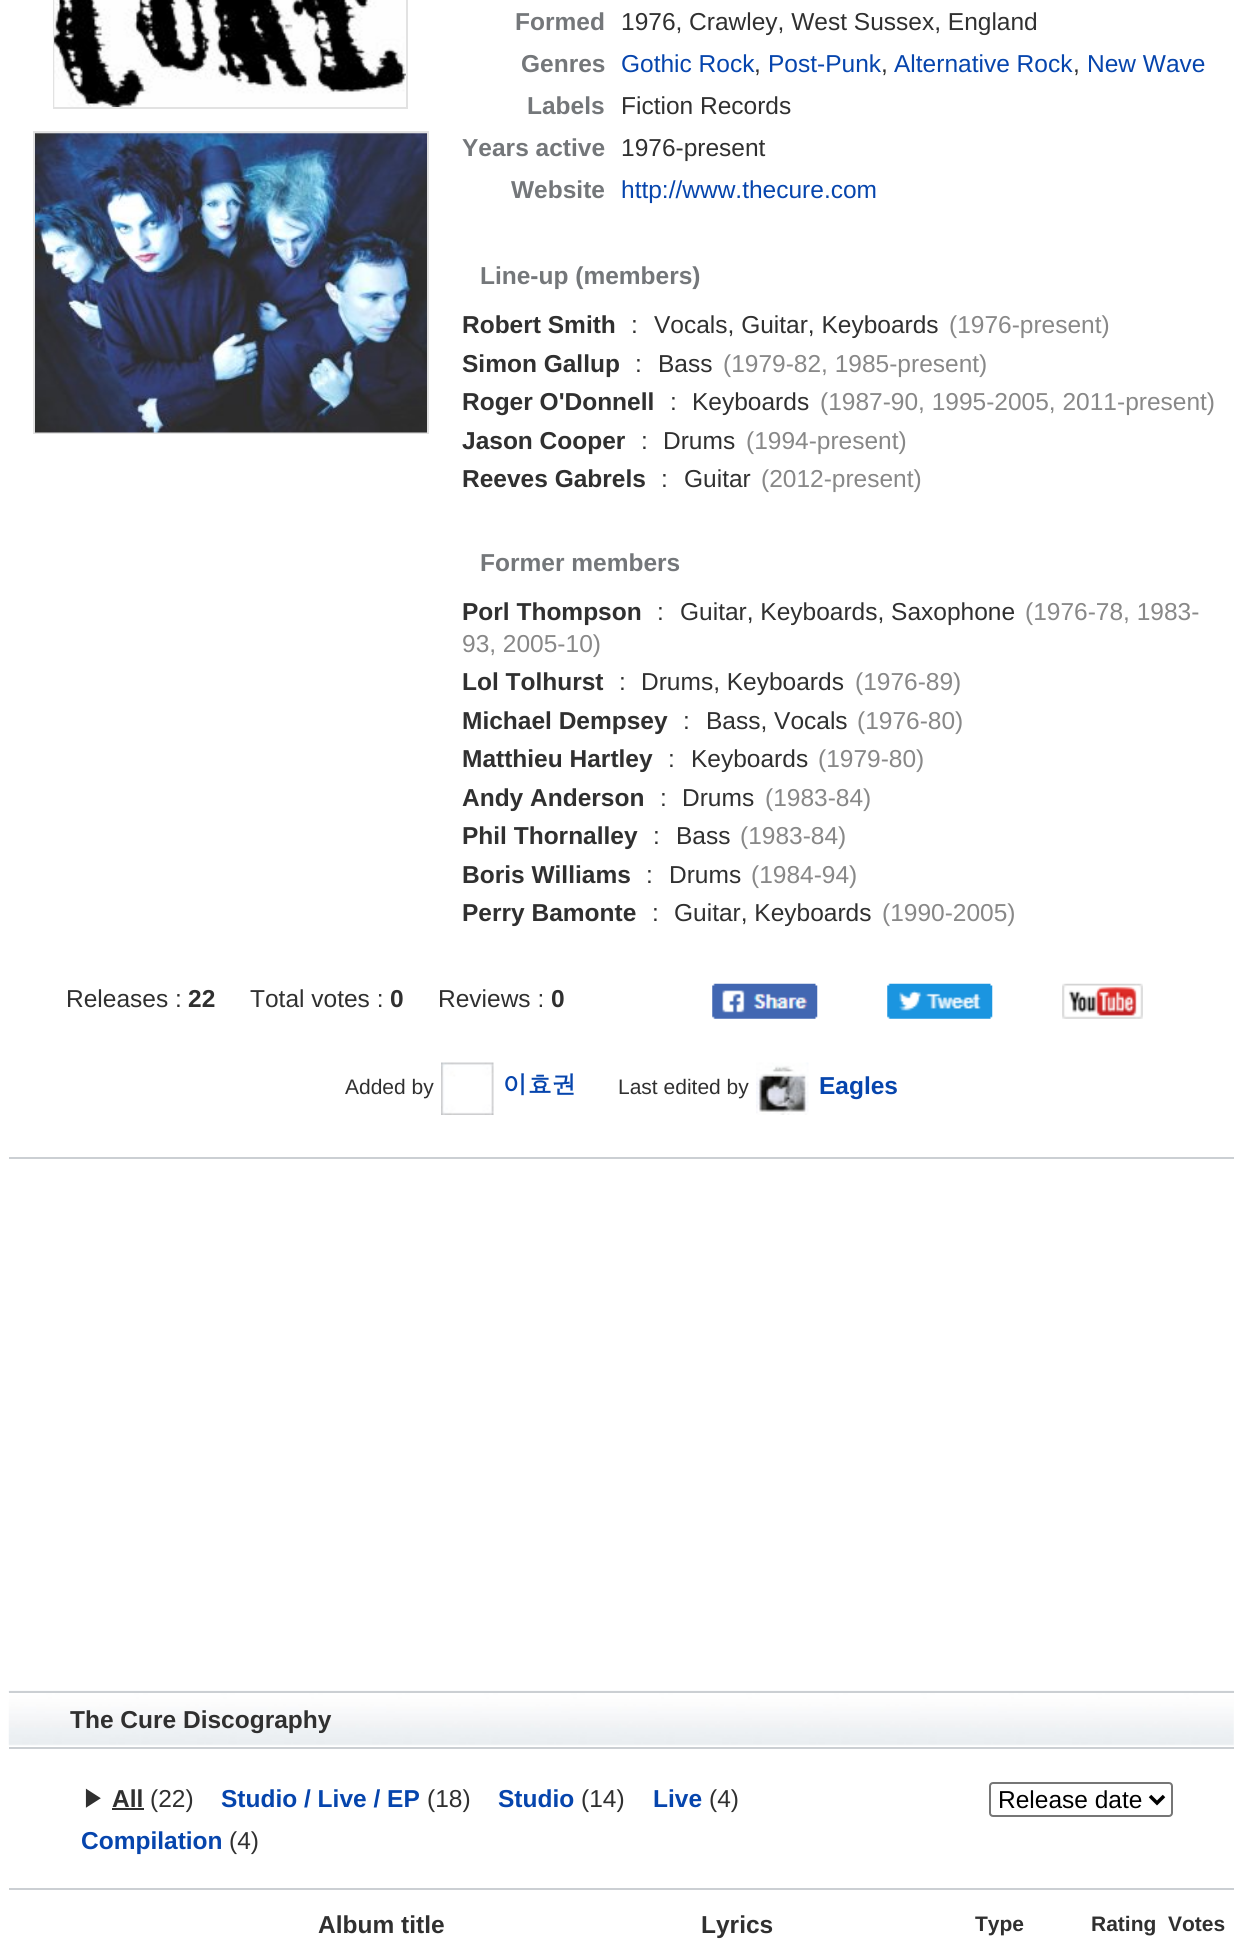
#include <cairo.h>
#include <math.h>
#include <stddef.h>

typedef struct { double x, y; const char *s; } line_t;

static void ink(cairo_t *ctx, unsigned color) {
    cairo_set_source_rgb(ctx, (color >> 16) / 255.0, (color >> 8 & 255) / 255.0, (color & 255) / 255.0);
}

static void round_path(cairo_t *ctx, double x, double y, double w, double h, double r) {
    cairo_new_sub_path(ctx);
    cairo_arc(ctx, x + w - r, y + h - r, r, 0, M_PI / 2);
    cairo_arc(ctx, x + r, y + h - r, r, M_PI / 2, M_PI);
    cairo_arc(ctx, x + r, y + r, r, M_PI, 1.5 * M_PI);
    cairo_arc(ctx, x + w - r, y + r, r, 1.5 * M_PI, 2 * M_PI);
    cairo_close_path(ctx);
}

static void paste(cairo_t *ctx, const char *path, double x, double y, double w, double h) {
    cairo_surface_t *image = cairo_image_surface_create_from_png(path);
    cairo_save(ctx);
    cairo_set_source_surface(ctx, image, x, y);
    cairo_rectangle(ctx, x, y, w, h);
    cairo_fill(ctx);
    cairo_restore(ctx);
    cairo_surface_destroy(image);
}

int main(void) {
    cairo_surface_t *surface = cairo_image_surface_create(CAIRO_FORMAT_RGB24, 1242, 1947);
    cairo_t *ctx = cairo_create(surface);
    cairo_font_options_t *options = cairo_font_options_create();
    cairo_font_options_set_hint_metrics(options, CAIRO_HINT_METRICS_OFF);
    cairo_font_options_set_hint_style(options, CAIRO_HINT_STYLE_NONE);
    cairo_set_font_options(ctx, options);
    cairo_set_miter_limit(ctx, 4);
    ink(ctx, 0xFFFFFF);
    cairo_paint(ctx);
    cairo_rectangle(ctx, 54, -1, 353, 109);
    ink(ctx, 0xE2E2E2);
    cairo_stroke(ctx);
    paste(ctx, "media/1.png", 54, 0, 352, 107);
    cairo_rectangle(ctx, 34, 132, 394, 301);
    cairo_stroke(ctx);
    paste(ctx, "media/2.png", 35, 133, 392, 300);
    cairo_select_font_face(ctx, "Liberation Sans", CAIRO_FONT_SLANT_NORMAL, CAIRO_FONT_WEIGHT_BOLD);
    cairo_set_font_size(ctx, 24.5);
    ink(ctx, 0x74777A);
    cairo_move_to(ctx, 515, 30);
    cairo_show_text(ctx, "Formed");
    cairo_select_font_face(ctx, "Liberation Sans", CAIRO_FONT_SLANT_NORMAL, CAIRO_FONT_WEIGHT_NORMAL);
    ink(ctx, 0x303030);
    cairo_move_to(ctx, 621, 30);
    cairo_show_text(ctx, "1976, Crawley, West Sussex, England");
    cairo_select_font_face(ctx, "Liberation Sans", CAIRO_FONT_SLANT_NORMAL, CAIRO_FONT_WEIGHT_BOLD);
    ink(ctx, 0x74777A);
    cairo_move_to(ctx, 521, 72);
    cairo_show_text(ctx, "Genres");
    cairo_select_font_face(ctx, "Liberation Sans", CAIRO_FONT_SLANT_NORMAL, CAIRO_FONT_WEIGHT_NORMAL);
    ink(ctx, 0x0645AD);
    cairo_move_to(ctx, 621, 72);
    cairo_show_text(ctx, "Gothic Rock");
    ink(ctx, 0x303030);
    cairo_move_to(ctx, 754, 72);
    cairo_show_text(ctx, ",");
    ink(ctx, 0x0645AD);
    cairo_move_to(ctx, 768, 72);
    cairo_show_text(ctx, "Post-Punk");
    ink(ctx, 0x303030);
    cairo_move_to(ctx, 881, 72);
    cairo_show_text(ctx, ",");
    ink(ctx, 0x0645AD);
    cairo_move_to(ctx, 894, 72);
    cairo_show_text(ctx, "Alternative Rock");
    ink(ctx, 0x303030);
    cairo_move_to(ctx, 1073, 72);
    cairo_show_text(ctx, ",");
    ink(ctx, 0x0645AD);
    cairo_move_to(ctx, 1087, 72);
    cairo_show_text(ctx, "New Wave");
    cairo_select_font_face(ctx, "Liberation Sans", CAIRO_FONT_SLANT_NORMAL, CAIRO_FONT_WEIGHT_BOLD);
    ink(ctx, 0x74777A);
    cairo_move_to(ctx, 527, 114);
    cairo_show_text(ctx, "Labels");
    cairo_select_font_face(ctx, "Liberation Sans", CAIRO_FONT_SLANT_NORMAL, CAIRO_FONT_WEIGHT_NORMAL);
    ink(ctx, 0x303030);
    cairo_move_to(ctx, 621, 114);
    cairo_show_text(ctx, "Fiction Records");
    cairo_select_font_face(ctx, "Liberation Sans", CAIRO_FONT_SLANT_NORMAL, CAIRO_FONT_WEIGHT_BOLD);
    ink(ctx, 0x74777A);
    cairo_move_to(ctx, 462, 156);
    cairo_show_text(ctx, "Years active");
    cairo_select_font_face(ctx, "Liberation Sans", CAIRO_FONT_SLANT_NORMAL, CAIRO_FONT_WEIGHT_NORMAL);
    ink(ctx, 0x303030);
    cairo_move_to(ctx, 621, 156);
    cairo_show_text(ctx, "1976-present");
    cairo_select_font_face(ctx, "Liberation Sans", CAIRO_FONT_SLANT_NORMAL, CAIRO_FONT_WEIGHT_BOLD);
    ink(ctx, 0x74777A);
    cairo_move_to(ctx, 511, 198);
    cairo_show_text(ctx, "Website");
    cairo_select_font_face(ctx, "Liberation Sans", CAIRO_FONT_SLANT_NORMAL, CAIRO_FONT_WEIGHT_NORMAL);
    ink(ctx, 0x0645AD);
    cairo_move_to(ctx, 621, 198);
    cairo_show_text(ctx, "http://www.thecure.com");
    cairo_select_font_face(ctx, "Liberation Sans", CAIRO_FONT_SLANT_NORMAL, CAIRO_FONT_WEIGHT_BOLD);
    ink(ctx, 0x74777A);
    cairo_move_to(ctx, 480, 284);
    cairo_show_text(ctx, "Line-up (members)");
    ink(ctx, 0x303030);
    cairo_move_to(ctx, 462, 333);
    cairo_show_text(ctx, "Robert Smith");
    cairo_select_font_face(ctx, "Liberation Sans", CAIRO_FONT_SLANT_NORMAL, CAIRO_FONT_WEIGHT_NORMAL);
    cairo_move_to(ctx, 631, 333);
    cairo_show_text(ctx, ":");
    cairo_move_to(ctx, 654, 333);
    cairo_show_text(ctx, "Vocals, Guitar, Keyboards");
    ink(ctx, 0x888888);
    cairo_move_to(ctx, 949, 333);
    cairo_show_text(ctx, "(1976-present)");
    cairo_select_font_face(ctx, "Liberation Sans", CAIRO_FONT_SLANT_NORMAL, CAIRO_FONT_WEIGHT_BOLD);
    ink(ctx, 0x303030);
    cairo_move_to(ctx, 462, 372);
    cairo_show_text(ctx, "Simon Gallup");
    cairo_select_font_face(ctx, "Liberation Sans", CAIRO_FONT_SLANT_NORMAL, CAIRO_FONT_WEIGHT_NORMAL);
    cairo_move_to(ctx, 635, 372);
    cairo_show_text(ctx, ":");
    cairo_move_to(ctx, 658, 372);
    cairo_show_text(ctx, "Bass");
    ink(ctx, 0x888888);
    cairo_move_to(ctx, 723, 372);
    cairo_show_text(ctx, "(1979-82, 1985-present)");
    cairo_select_font_face(ctx, "Liberation Sans", CAIRO_FONT_SLANT_NORMAL, CAIRO_FONT_WEIGHT_BOLD);
    ink(ctx, 0x303030);
    cairo_move_to(ctx, 462, 410);
    cairo_show_text(ctx, "Roger O'Donnell");
    cairo_select_font_face(ctx, "Liberation Sans", CAIRO_FONT_SLANT_NORMAL, CAIRO_FONT_WEIGHT_NORMAL);
    cairo_move_to(ctx, 670, 410);
    cairo_show_text(ctx, ":");
    cairo_move_to(ctx, 692, 410);
    cairo_show_text(ctx, "Keyboards");
    ink(ctx, 0x888888);
    cairo_move_to(ctx, 820, 410);
    cairo_show_text(ctx, "(1987-90, 1995-2005, 2011-present)");
    cairo_select_font_face(ctx, "Liberation Sans", CAIRO_FONT_SLANT_NORMAL, CAIRO_FONT_WEIGHT_BOLD);
    ink(ctx, 0x303030);
    cairo_move_to(ctx, 462, 449);
    cairo_show_text(ctx, "Jason Cooper");
    cairo_select_font_face(ctx, "Liberation Sans", CAIRO_FONT_SLANT_NORMAL, CAIRO_FONT_WEIGHT_NORMAL);
    cairo_move_to(ctx, 641, 449);
    cairo_show_text(ctx, ":");
    cairo_move_to(ctx, 663, 449);
    cairo_show_text(ctx, "Drums");
    ink(ctx, 0x888888);
    cairo_move_to(ctx, 746, 449);
    cairo_show_text(ctx, "(1994-present)");
    cairo_select_font_face(ctx, "Liberation Sans", CAIRO_FONT_SLANT_NORMAL, CAIRO_FONT_WEIGHT_BOLD);
    ink(ctx, 0x303030);
    cairo_move_to(ctx, 462, 487);
    cairo_show_text(ctx, "Reeves Gabrels");
    cairo_select_font_face(ctx, "Liberation Sans", CAIRO_FONT_SLANT_NORMAL, CAIRO_FONT_WEIGHT_NORMAL);
    cairo_move_to(ctx, 661, 487);
    cairo_show_text(ctx, ":");
    cairo_move_to(ctx, 684, 487);
    cairo_show_text(ctx, "Guitar");
    ink(ctx, 0x888888);
    cairo_move_to(ctx, 761, 487);
    cairo_show_text(ctx, "(2012-present)");
    cairo_select_font_face(ctx, "Liberation Sans", CAIRO_FONT_SLANT_NORMAL, CAIRO_FONT_WEIGHT_BOLD);
    ink(ctx, 0x74777A);
    cairo_move_to(ctx, 480, 571);
    cairo_show_text(ctx, "Former members");
    ink(ctx, 0x303030);
    cairo_move_to(ctx, 462, 620);
    cairo_show_text(ctx, "Porl Thompson");
    cairo_select_font_face(ctx, "Liberation Sans", CAIRO_FONT_SLANT_NORMAL, CAIRO_FONT_WEIGHT_NORMAL);
    cairo_move_to(ctx, 657, 620);
    cairo_show_text(ctx, ":");
    cairo_move_to(ctx, 680, 620);
    cairo_show_text(ctx, "Guitar, Keyboards, Saxophone");
    ink(ctx, 0x888888);
    cairo_move_to(ctx, 1025, 620);
    cairo_show_text(ctx, "(1976-78, 1983-");
    cairo_move_to(ctx, 462, 652);
    cairo_show_text(ctx, "93, 2005-10)");
    cairo_select_font_face(ctx, "Liberation Sans", CAIRO_FONT_SLANT_NORMAL, CAIRO_FONT_WEIGHT_BOLD);
    ink(ctx, 0x303030);
    cairo_move_to(ctx, 462, 690);
    cairo_show_text(ctx, "Lol Tolhurst");
    cairo_select_font_face(ctx, "Liberation Sans", CAIRO_FONT_SLANT_NORMAL, CAIRO_FONT_WEIGHT_NORMAL);
    cairo_move_to(ctx, 619, 690);
    cairo_show_text(ctx, ":");
    cairo_move_to(ctx, 641, 690);
    cairo_show_text(ctx, "Drums, Keyboards");
    ink(ctx, 0x888888);
    cairo_move_to(ctx, 855, 690);
    cairo_show_text(ctx, "(1976-89)");
    cairo_select_font_face(ctx, "Liberation Sans", CAIRO_FONT_SLANT_NORMAL, CAIRO_FONT_WEIGHT_BOLD);
    ink(ctx, 0x303030);
    cairo_move_to(ctx, 462, 729);
    cairo_show_text(ctx, "Michael Dempsey");
    cairo_select_font_face(ctx, "Liberation Sans", CAIRO_FONT_SLANT_NORMAL, CAIRO_FONT_WEIGHT_NORMAL);
    cairo_move_to(ctx, 683, 729);
    cairo_show_text(ctx, ":");
    cairo_move_to(ctx, 706, 729);
    cairo_show_text(ctx, "Bass, Vocals");
    ink(ctx, 0x888888);
    cairo_move_to(ctx, 857, 729);
    cairo_show_text(ctx, "(1976-80)");
    cairo_select_font_face(ctx, "Liberation Sans", CAIRO_FONT_SLANT_NORMAL, CAIRO_FONT_WEIGHT_BOLD);
    ink(ctx, 0x303030);
    cairo_move_to(ctx, 462, 767);
    cairo_show_text(ctx, "Matthieu Hartley");
    cairo_select_font_face(ctx, "Liberation Sans", CAIRO_FONT_SLANT_NORMAL, CAIRO_FONT_WEIGHT_NORMAL);
    cairo_move_to(ctx, 668, 767);
    cairo_show_text(ctx, ":");
    cairo_move_to(ctx, 691, 767);
    cairo_show_text(ctx, "Keyboards");
    ink(ctx, 0x888888);
    cairo_move_to(ctx, 818, 767);
    cairo_show_text(ctx, "(1979-80)");
    cairo_select_font_face(ctx, "Liberation Sans", CAIRO_FONT_SLANT_NORMAL, CAIRO_FONT_WEIGHT_BOLD);
    ink(ctx, 0x303030);
    cairo_move_to(ctx, 462, 806);
    cairo_show_text(ctx, "Andy Anderson");
    cairo_select_font_face(ctx, "Liberation Sans", CAIRO_FONT_SLANT_NORMAL, CAIRO_FONT_WEIGHT_NORMAL);
    cairo_move_to(ctx, 660, 806);
    cairo_show_text(ctx, ":");
    cairo_move_to(ctx, 682, 806);
    cairo_show_text(ctx, "Drums");
    ink(ctx, 0x888888);
    cairo_move_to(ctx, 765, 806);
    cairo_show_text(ctx, "(1983-84)");
    cairo_select_font_face(ctx, "Liberation Sans", CAIRO_FONT_SLANT_NORMAL, CAIRO_FONT_WEIGHT_BOLD);
    ink(ctx, 0x303030);
    cairo_move_to(ctx, 462, 844);
    cairo_show_text(ctx, "Phil Thornalley");
    cairo_select_font_face(ctx, "Liberation Sans", CAIRO_FONT_SLANT_NORMAL, CAIRO_FONT_WEIGHT_NORMAL);
    cairo_move_to(ctx, 653, 844);
    cairo_show_text(ctx, ":");
    cairo_move_to(ctx, 676, 844);
    cairo_show_text(ctx, "Bass");
    ink(ctx, 0x888888);
    cairo_move_to(ctx, 740, 844);
    cairo_show_text(ctx, "(1983-84)");
    cairo_select_font_face(ctx, "Liberation Sans", CAIRO_FONT_SLANT_NORMAL, CAIRO_FONT_WEIGHT_BOLD);
    ink(ctx, 0x303030);
    cairo_move_to(ctx, 462, 883);
    cairo_show_text(ctx, "Boris Williams");
    cairo_select_font_face(ctx, "Liberation Sans", CAIRO_FONT_SLANT_NORMAL, CAIRO_FONT_WEIGHT_NORMAL);
    cairo_move_to(ctx, 646, 883);
    cairo_show_text(ctx, ":");
    cairo_move_to(ctx, 669, 883);
    cairo_show_text(ctx, "Drums");
    ink(ctx, 0x888888);
    cairo_move_to(ctx, 751, 883);
    cairo_show_text(ctx, "(1984-94)");
    cairo_select_font_face(ctx, "Liberation Sans", CAIRO_FONT_SLANT_NORMAL, CAIRO_FONT_WEIGHT_BOLD);
    ink(ctx, 0x303030);
    cairo_move_to(ctx, 462, 921);
    cairo_show_text(ctx, "Perry Bamonte");
    cairo_select_font_face(ctx, "Liberation Sans", CAIRO_FONT_SLANT_NORMAL, CAIRO_FONT_WEIGHT_NORMAL);
    cairo_move_to(ctx, 652, 921);
    cairo_show_text(ctx, ":");
    cairo_move_to(ctx, 674, 921);
    cairo_show_text(ctx, "Guitar, Keyboards");
    ink(ctx, 0x888888);
    cairo_move_to(ctx, 882, 921);
    cairo_show_text(ctx, "(1990-2005)");
    ink(ctx, 0xCBCFD3);
    cairo_rectangle(ctx, 9, 1157, 1225, 2);
    cairo_fill(ctx);
    ink(ctx, 0x303030);
    cairo_move_to(ctx, 66, 1007);
    cairo_show_text(ctx, "Releases :");
    cairo_select_font_face(ctx, "Liberation Sans", CAIRO_FONT_SLANT_NORMAL, CAIRO_FONT_WEIGHT_BOLD);
    cairo_move_to(ctx, 188, 1007);
    cairo_show_text(ctx, "22");
    cairo_select_font_face(ctx, "Liberation Sans", CAIRO_FONT_SLANT_NORMAL, CAIRO_FONT_WEIGHT_NORMAL);
    cairo_move_to(ctx, 250, 1007);
    cairo_show_text(ctx, "Total votes :");
    cairo_select_font_face(ctx, "Liberation Sans", CAIRO_FONT_SLANT_NORMAL, CAIRO_FONT_WEIGHT_BOLD);
    cairo_move_to(ctx, 390, 1007);
    cairo_show_text(ctx, "0");
    cairo_select_font_face(ctx, "Liberation Sans", CAIRO_FONT_SLANT_NORMAL, CAIRO_FONT_WEIGHT_NORMAL);
    cairo_move_to(ctx, 438, 1007);
    cairo_show_text(ctx, "Reviews :");
    cairo_select_font_face(ctx, "Liberation Sans", CAIRO_FONT_SLANT_NORMAL, CAIRO_FONT_WEIGHT_BOLD);
    cairo_move_to(ctx, 551, 1007);
    cairo_show_text(ctx, "0");
    paste(ctx, "media/3.png", 712, 983, 106, 36);
    paste(ctx, "media/4.png", 887, 983, 106, 36);
    paste(ctx, "media/5.png", 1062, 983, 81, 36);
    cairo_select_font_face(ctx, "Liberation Sans", CAIRO_FONT_SLANT_NORMAL, CAIRO_FONT_WEIGHT_NORMAL);
    cairo_set_font_size(ctx, 21);
    cairo_move_to(ctx, 345, 1094);
    cairo_show_text(ctx, "Added by");
    paste(ctx, "media/6.png", 441, 1062, 53, 53);
    cairo_select_font_face(ctx, "Dotum", CAIRO_FONT_SLANT_NORMAL, CAIRO_FONT_WEIGHT_BOLD);
    cairo_set_font_size(ctx, 24.5);
    ink(ctx, 0x0645AD);
    cairo_move_to(ctx, 503, 1094);
    cairo_show_text(ctx, "이효권");
    cairo_select_font_face(ctx, "Liberation Sans", CAIRO_FONT_SLANT_NORMAL, CAIRO_FONT_WEIGHT_NORMAL);
    cairo_set_font_size(ctx, 21);
    ink(ctx, 0x303030);
    cairo_move_to(ctx, 618, 1094);
    cairo_show_text(ctx, "Last edited by");
    paste(ctx, "media/7.png", 756, 1062, 53, 53);
    cairo_select_font_face(ctx, "Liberation Sans", CAIRO_FONT_SLANT_NORMAL, CAIRO_FONT_WEIGHT_BOLD);
    cairo_set_font_size(ctx, 24.5);
    ink(ctx, 0x0645AD);
    cairo_move_to(ctx, 819, 1094);
    cairo_show_text(ctx, "Eagles");
    paste(ctx, "media/8.png", 8, 1690, 1226, 56);
    ink(ctx, 0xCBCFD3);
    cairo_rectangle(ctx, 9, 1691, 1225, 2);
    cairo_fill(ctx);
    cairo_rectangle(ctx, 9, 1747, 1225, 2);
    cairo_fill(ctx);
    ink(ctx, 0x303030);
    cairo_move_to(ctx, 70, 1728);
    cairo_show_text(ctx, "The Cure Discography");
    ink(ctx, 0xCBCFD3);
    cairo_rectangle(ctx, 9, 1888, 1225, 2);
    cairo_fill(ctx);
    cairo_select_font_face(ctx, "Dotum", CAIRO_FONT_SLANT_NORMAL, CAIRO_FONT_WEIGHT_NORMAL);
    ink(ctx, 0x303030);
    cairo_move_to(ctx, 81, 1807);
    cairo_show_text(ctx, "▶");
    cairo_select_font_face(ctx, "Liberation Sans", CAIRO_FONT_SLANT_NORMAL, CAIRO_FONT_WEIGHT_BOLD);
    cairo_move_to(ctx, 112, 1807);
    cairo_show_text(ctx, "All");
    cairo_rectangle(ctx, 112, 1808, 32, 2);
    cairo_fill(ctx);
    cairo_select_font_face(ctx, "Liberation Sans", CAIRO_FONT_SLANT_NORMAL, CAIRO_FONT_WEIGHT_NORMAL);
    cairo_move_to(ctx, 150, 1807);
    cairo_show_text(ctx, "(22)");
    cairo_select_font_face(ctx, "Liberation Sans", CAIRO_FONT_SLANT_NORMAL, CAIRO_FONT_WEIGHT_BOLD);
    ink(ctx, 0x0645AD);
    cairo_move_to(ctx, 221, 1807);
    cairo_show_text(ctx, "Studio / Live / EP");
    cairo_select_font_face(ctx, "Liberation Sans", CAIRO_FONT_SLANT_NORMAL, CAIRO_FONT_WEIGHT_NORMAL);
    ink(ctx, 0x303030);
    cairo_move_to(ctx, 427, 1807);
    cairo_show_text(ctx, "(18)");
    cairo_select_font_face(ctx, "Liberation Sans", CAIRO_FONT_SLANT_NORMAL, CAIRO_FONT_WEIGHT_BOLD);
    ink(ctx, 0x0645AD);
    cairo_move_to(ctx, 498, 1807);
    cairo_show_text(ctx, "Studio");
    cairo_select_font_face(ctx, "Liberation Sans", CAIRO_FONT_SLANT_NORMAL, CAIRO_FONT_WEIGHT_NORMAL);
    ink(ctx, 0x303030);
    cairo_move_to(ctx, 581, 1807);
    cairo_show_text(ctx, "(14)");
    cairo_select_font_face(ctx, "Liberation Sans", CAIRO_FONT_SLANT_NORMAL, CAIRO_FONT_WEIGHT_BOLD);
    ink(ctx, 0x0645AD);
    cairo_move_to(ctx, 653, 1807);
    cairo_show_text(ctx, "Live");
    cairo_select_font_face(ctx, "Liberation Sans", CAIRO_FONT_SLANT_NORMAL, CAIRO_FONT_WEIGHT_NORMAL);
    ink(ctx, 0x303030);
    cairo_move_to(ctx, 709, 1807);
    cairo_show_text(ctx, "(4)");
    cairo_select_font_face(ctx, "Liberation Sans", CAIRO_FONT_SLANT_NORMAL, CAIRO_FONT_WEIGHT_BOLD);
    ink(ctx, 0x0645AD);
    cairo_move_to(ctx, 81, 1849);
    cairo_show_text(ctx, "Compilation");
    cairo_select_font_face(ctx, "Liberation Sans", CAIRO_FONT_SLANT_NORMAL, CAIRO_FONT_WEIGHT_NORMAL);
    ink(ctx, 0x303030);
    cairo_move_to(ctx, 229, 1849);
    cairo_show_text(ctx, "(4)");
    round_path(ctx, 990, 1783, 182, 33, 3);
    ink(ctx, 0x767676);
    cairo_stroke(ctx);
    cairo_new_path(ctx);
    cairo_move_to(ctx, 1150, 1796);
    cairo_line_to(ctx, 1157, 1803);
    cairo_line_to(ctx, 1164, 1796);
    ink(ctx, 0x000000);
    cairo_set_line_width(ctx, 3.5);
    cairo_stroke(ctx);
    cairo_move_to(ctx, 998, 1808);
    cairo_show_text(ctx, "Release date");
    cairo_select_font_face(ctx, "Liberation Sans", CAIRO_FONT_SLANT_NORMAL, CAIRO_FONT_WEIGHT_BOLD);
    ink(ctx, 0x303030);
    cairo_move_to(ctx, 318, 1933);
    cairo_show_text(ctx, "Album title");
    cairo_move_to(ctx, 701, 1933);
    cairo_show_text(ctx, "Lyrics");
    cairo_set_font_size(ctx, 21);
    {
        static const line_t items[] = {
            {975, 1931, "Type"},
            {1091, 1931, "Rating"},
            {1168, 1931, "Votes"},
        };
        for (size_t i = 0; i < sizeof items / sizeof *items; i++) {
            cairo_move_to(ctx, items[i].x, items[i].y);
            cairo_show_text(ctx, items[i].s);
        }
    }
    cairo_surface_write_to_png(surface, "image.png");
    cairo_font_options_destroy(options);
    cairo_destroy(ctx);
    cairo_surface_destroy(surface);
    return 0;
}
